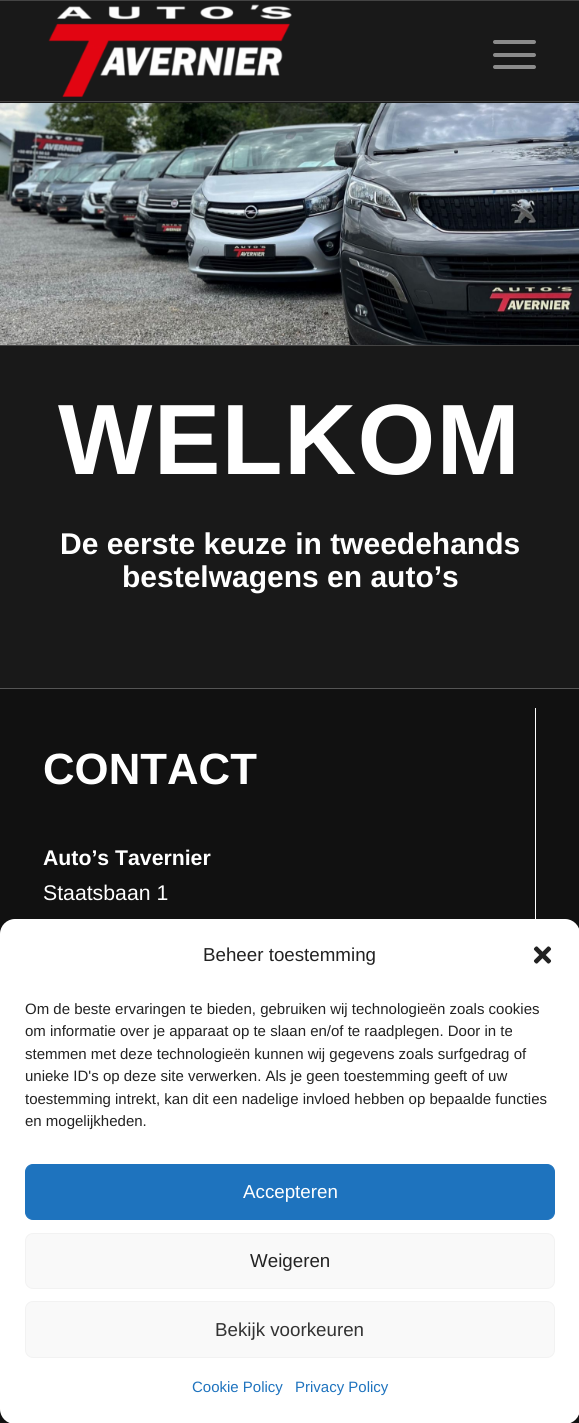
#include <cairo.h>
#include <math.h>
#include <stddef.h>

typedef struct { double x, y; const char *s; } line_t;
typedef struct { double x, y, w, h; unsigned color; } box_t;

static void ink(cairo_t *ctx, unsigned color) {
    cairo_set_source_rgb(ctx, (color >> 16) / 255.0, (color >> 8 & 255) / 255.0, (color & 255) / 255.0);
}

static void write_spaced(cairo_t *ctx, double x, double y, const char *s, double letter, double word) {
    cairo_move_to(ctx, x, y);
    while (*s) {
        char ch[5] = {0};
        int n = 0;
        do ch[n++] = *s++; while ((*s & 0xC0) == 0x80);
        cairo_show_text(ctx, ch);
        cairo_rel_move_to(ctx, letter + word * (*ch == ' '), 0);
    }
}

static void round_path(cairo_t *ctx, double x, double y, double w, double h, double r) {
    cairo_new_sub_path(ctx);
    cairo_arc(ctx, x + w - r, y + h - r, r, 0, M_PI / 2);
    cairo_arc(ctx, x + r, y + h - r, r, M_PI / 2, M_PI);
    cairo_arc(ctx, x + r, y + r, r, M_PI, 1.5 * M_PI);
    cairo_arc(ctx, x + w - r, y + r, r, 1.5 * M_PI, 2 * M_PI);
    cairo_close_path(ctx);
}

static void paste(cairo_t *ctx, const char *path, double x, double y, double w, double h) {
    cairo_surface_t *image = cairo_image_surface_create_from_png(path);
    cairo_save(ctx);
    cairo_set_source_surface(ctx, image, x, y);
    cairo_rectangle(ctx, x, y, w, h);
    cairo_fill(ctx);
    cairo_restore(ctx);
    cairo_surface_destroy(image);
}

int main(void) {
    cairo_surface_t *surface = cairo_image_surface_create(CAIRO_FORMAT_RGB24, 579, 1423);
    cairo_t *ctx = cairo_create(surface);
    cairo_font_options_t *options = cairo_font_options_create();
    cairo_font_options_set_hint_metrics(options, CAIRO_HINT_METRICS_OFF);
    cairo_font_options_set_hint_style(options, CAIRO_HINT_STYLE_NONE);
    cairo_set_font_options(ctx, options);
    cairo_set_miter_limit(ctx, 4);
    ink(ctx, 0x191919);
    cairo_paint(ctx);
    ink(ctx, 0x444444);
    cairo_rectangle(ctx, 0, 0, 579, 1);
    cairo_fill(ctx);
    cairo_rectangle(ctx, 0, 101, 579, 1);
    cairo_fill(ctx);
    paste(ctx, "media/1.png", 48, 4, 244, 94);
    ink(ctx, 0x8C8C8C);
    round_path(ctx, 493, 53, 43, 4, 2);
    cairo_fill(ctx);
    round_path(ctx, 493, 40, 43, 4, 2);
    cairo_fill(ctx);
    round_path(ctx, 493, 65, 43, 4, 2);
    cairo_fill(ctx);
    paste(ctx, "media/2.png", 0, 103, 579, 242);
    ink(ctx, 0x444444);
    cairo_rectangle(ctx, 0, 345, 579, 1);
    cairo_fill(ctx);
    cairo_select_font_face(ctx, "Liberation Sans", CAIRO_FONT_SLANT_NORMAL, CAIRO_FONT_WEIGHT_BOLD);
    cairo_set_font_size(ctx, 100);
    ink(ctx, 0xFFFFFF);
    write_spaced(ctx, 58, 474, "WELKOM", 1.25, 0);
    cairo_set_font_size(ctx, 30);
    cairo_move_to(ctx, 60, 554);
    cairo_show_text(ctx, "De eerste keuze in tweedehands");
    cairo_move_to(ctx, 122, 587);
    cairo_show_text(ctx, "bestelwagens en auto’s");
    {
        static const box_t items[] = {
            {0, 689, 579, 734, 0x111111},
            {0, 688, 579, 1, 0x555555},
            {535, 708, 1, 211, 0xFFFFFF},
        };
        for (size_t i = 0; i < sizeof items / sizeof *items; i++) {
            ink(ctx, items[i].color);
            cairo_rectangle(ctx, items[i].x, items[i].y, items[i].w, items[i].h);
            cairo_fill(ctx);
        }
    }
    cairo_set_font_size(ctx, 43.75);
    cairo_move_to(ctx, 43, 784);
    cairo_show_text(ctx, "CONTACT");
    cairo_set_font_size(ctx, 21.25);
    cairo_move_to(ctx, 43, 865);
    cairo_show_text(ctx, "Auto’s Tavernier");
    cairo_select_font_face(ctx, "Liberation Sans", CAIRO_FONT_SLANT_NORMAL, CAIRO_FONT_WEIGHT_NORMAL);
    cairo_move_to(ctx, 43, 900);
    cairo_show_text(ctx, "Staatsbaan 1");
    round_path(ctx, 0, 919, 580, 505, 15);
    cairo_fill(ctx);
    cairo_set_font_size(ctx, 18.75);
    ink(ctx, 0x222222);
    cairo_move_to(ctx, 203, 961);
    cairo_show_text(ctx, "Beheer toestemming");
    paste(ctx, "media/3.png", 533, 946, 19, 18);
    cairo_set_font_size(ctx, 15);
    {
        static const line_t items[] = {
            {25, 1014, "Om de beste ervaringen te bieden, gebruiken wij technologieën zoals cookies"},
            {25, 1036, "om informatie over je apparaat op te slaan en/of te raadplegen. Door in te"},
            {25, 1059, "stemmen met deze technologieën kunnen wij gegevens zoals surfgedrag of"},
            {25, 1081, "unieke ID's op deze site verwerken. Als je geen toestemming geeft of uw"},
            {25, 1104, "toestemming intrekt, kan dit een nadelige invloed hebben op bepaalde functies"},
            {25, 1126, "en mogelijkheden."},
        };
        for (size_t i = 0; i < sizeof items / sizeof *items; i++) {
            cairo_move_to(ctx, items[i].x, items[i].y);
            cairo_show_text(ctx, items[i].s);
        }
    }
    ink(ctx, 0x1E73BE);
    round_path(ctx, 25.5, 1164.5, 529, 55, 7.5);
    cairo_fill_preserve(ctx);
    cairo_set_line_width(ctx, 1);
    cairo_stroke(ctx);
    cairo_set_font_size(ctx, 18.75);
    ink(ctx, 0xFFFFFF);
    cairo_move_to(ctx, 243, 1198);
    cairo_show_text(ctx, "Accepteren");
    ink(ctx, 0xF9F9F9);
    round_path(ctx, 25.5, 1233.5, 529, 55, 7.5);
    cairo_fill_preserve(ctx);
    ink(ctx, 0xF2F2F2);
    cairo_stroke(ctx);
    ink(ctx, 0x222222);
    cairo_move_to(ctx, 250, 1267);
    cairo_show_text(ctx, "Weigeren");
    ink(ctx, 0xF9F9F9);
    round_path(ctx, 25.5, 1301.5, 529, 56, 7.5);
    cairo_fill_preserve(ctx);
    ink(ctx, 0xF2F2F2);
    cairo_stroke(ctx);
    ink(ctx, 0x333333);
    cairo_move_to(ctx, 215, 1336);
    cairo_show_text(ctx, "Bekijk voorkeuren");
    cairo_set_font_size(ctx, 15);
    ink(ctx, 0x1E73BE);
    cairo_move_to(ctx, 192, 1392);
    cairo_show_text(ctx, "Cookie Policy");
    cairo_move_to(ctx, 295, 1392);
    cairo_show_text(ctx, "Privacy Policy");
    cairo_surface_write_to_png(surface, "image.png");
    cairo_font_options_destroy(options);
    cairo_destroy(ctx);
    cairo_surface_destroy(surface);
    return 0;
}
